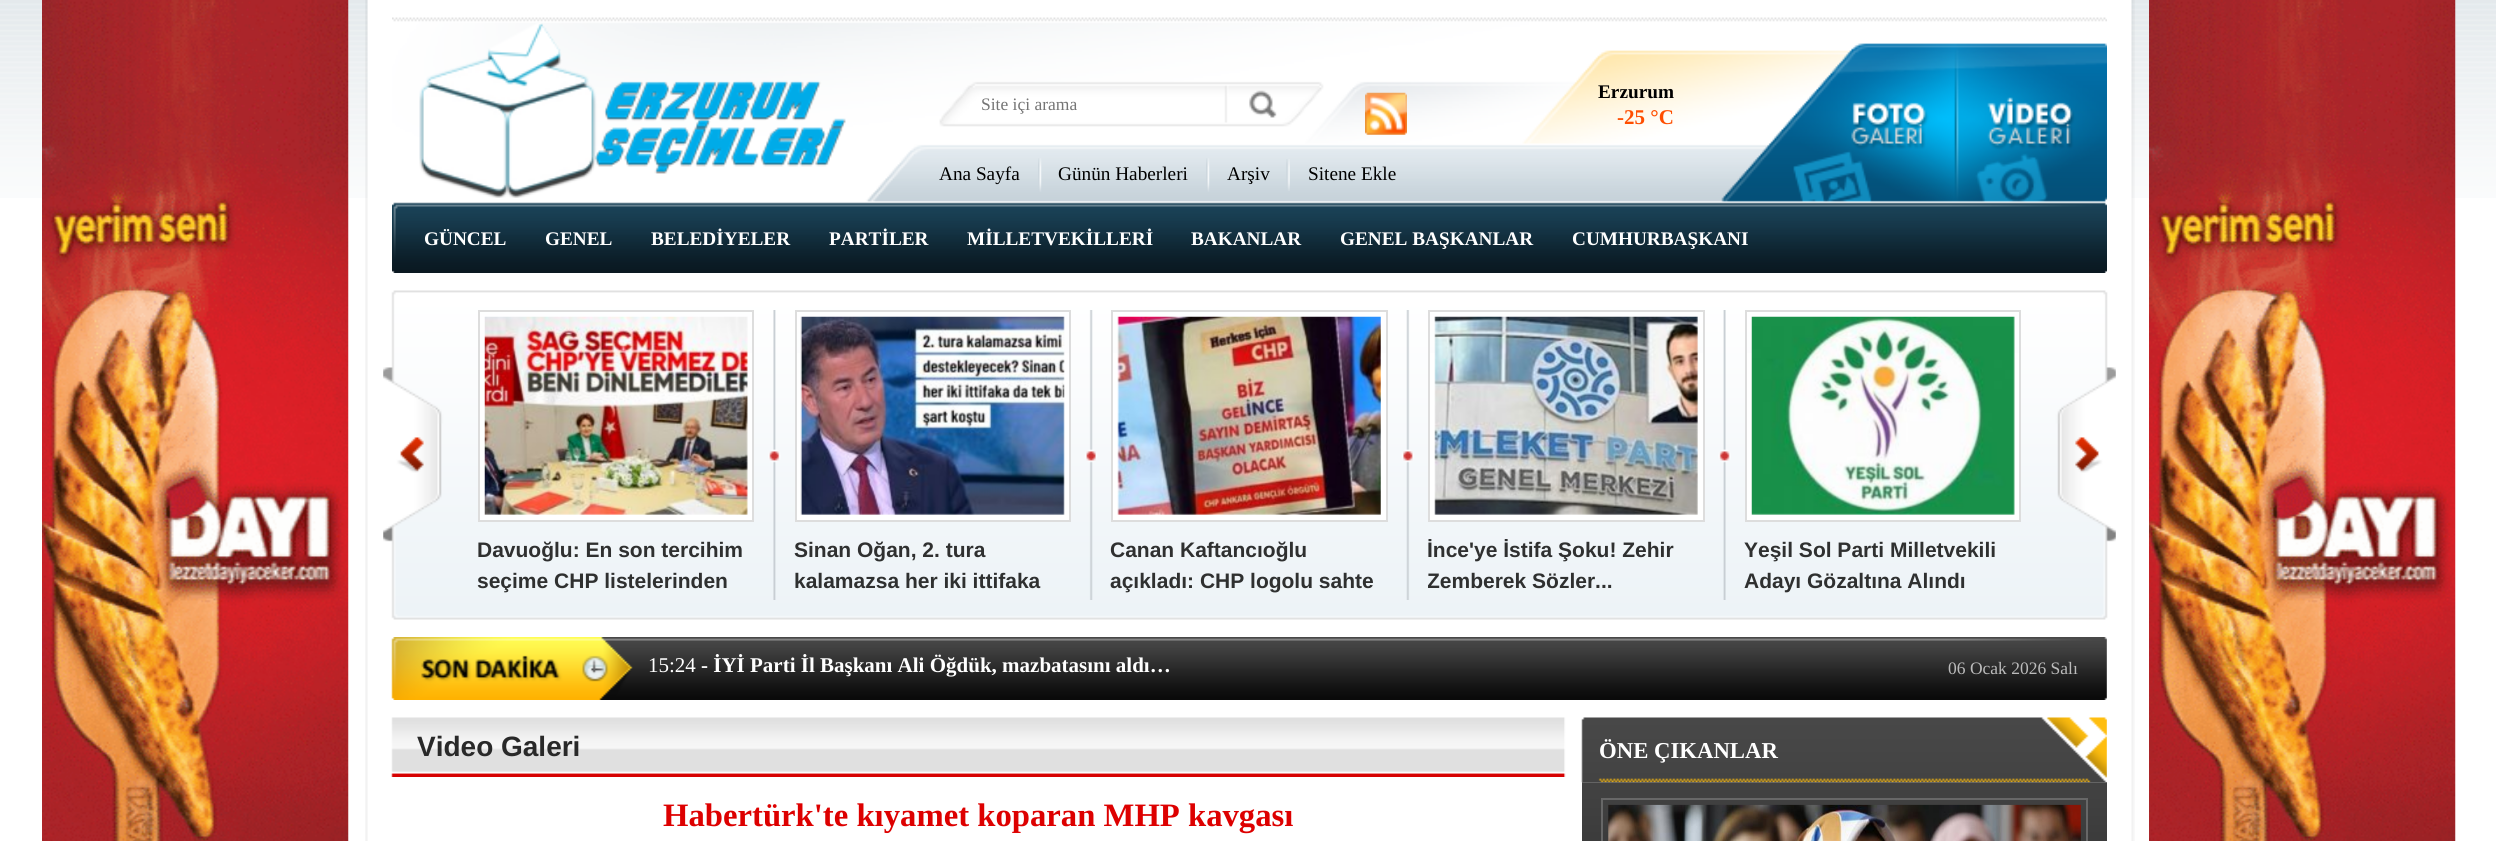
#include <cairo.h>
#include <math.h>
#include <stddef.h>

typedef struct { double x, y; const char *s; } line_t;

static void ink(cairo_t *ctx, unsigned color) {
    cairo_set_source_rgb(ctx, (color >> 16) / 255.0, (color >> 8 & 255) / 255.0, (color & 255) / 255.0);
}

static void paste(cairo_t *ctx, const char *path, double x, double y, double w, double h) {
    cairo_surface_t *image = cairo_image_surface_create_from_png(path);
    cairo_save(ctx);
    cairo_set_source_surface(ctx, image, x, y);
    cairo_rectangle(ctx, x, y, w, h);
    cairo_fill(ctx);
    cairo_restore(ctx);
    cairo_surface_destroy(image);
}

int main(void) {
    cairo_surface_t *surface = cairo_image_surface_create(CAIRO_FORMAT_RGB24, 2496, 841);
    cairo_t *ctx = cairo_create(surface);
    cairo_font_options_t *options = cairo_font_options_create();
    cairo_font_options_set_hint_metrics(options, CAIRO_HINT_METRICS_OFF);
    cairo_font_options_set_hint_style(options, CAIRO_HINT_STYLE_NONE);
    cairo_set_font_options(ctx, options);
    cairo_set_miter_limit(ctx, 4);
    ink(ctx, 0xFFFFFF);
    cairo_paint(ctx);
    paste(ctx, "media/1.png", 0, 0, 2496, 198);
    paste(ctx, "media/2.png", 42, 0, 307, 841);
    paste(ctx, "media/2.png", 2149, 0, 307, 841);
    paste(ctx, "media/3.png", 365, 0, 1770, 841);
    paste(ctx, "media/4.png", 392, 17, 1715, 256);
    paste(ctx, "media/5.png", 419, 23, 427, 175);
    cairo_select_font_face(ctx, "Liberation Serif", CAIRO_FONT_SLANT_NORMAL, CAIRO_FONT_WEIGHT_NORMAL);
    cairo_set_font_size(ctx, 17.5);
    ink(ctx, 0x757575);
    cairo_move_to(ctx, 981, 110);
    cairo_show_text(ctx, "Site içi arama");
    paste(ctx, "media/6.png", 1365, 92, 42, 43);
    cairo_select_font_face(ctx, "Liberation Serif", CAIRO_FONT_SLANT_NORMAL, CAIRO_FONT_WEIGHT_BOLD);
    cairo_set_font_size(ctx, 19.25);
    ink(ctx, 0x000000);
    cairo_move_to(ctx, 1598, 98);
    cairo_show_text(ctx, "Erzurum");
    cairo_set_font_size(ctx, 21);
    ink(ctx, 0xFF4E00);
    cairo_move_to(ctx, 1617, 124);
    cairo_show_text(ctx, "-25 °C");
    cairo_select_font_face(ctx, "Liberation Serif", CAIRO_FONT_SLANT_NORMAL, CAIRO_FONT_WEIGHT_NORMAL);
    cairo_set_font_size(ctx, 19.25);
    ink(ctx, 0x000000);
    cairo_move_to(ctx, 939, 180);
    cairo_show_text(ctx, "Ana Sayfa");
    paste(ctx, "media/7.png", 1038, 158, 4, 34);
    cairo_move_to(ctx, 1058, 180);
    cairo_show_text(ctx, "Günün Haberleri");
    paste(ctx, "media/8.png", 1206, 158, 4, 34);
    cairo_move_to(ctx, 1227, 180);
    cairo_show_text(ctx, "Arşiv");
    paste(ctx, "media/9.png", 1286, 159, 4, 32);
    cairo_move_to(ctx, 1308, 180);
    cairo_show_text(ctx, "Sitene Ekle");
    cairo_select_font_face(ctx, "Liberation Serif", CAIRO_FONT_SLANT_NORMAL, CAIRO_FONT_WEIGHT_BOLD);
    ink(ctx, 0xFFFFFF);
    {
        static const line_t items[] = {
            {424, 245, "GÜNCEL"},
            {545, 245, "GENEL"},
            {651, 245, "BELEDİYELER"},
            {829, 245, "PARTİLER"},
            {967, 245, "MİLLETVEKİLLERİ"},
            {1191, 245, "BAKANLAR"},
            {1340, 245, "GENEL BAŞKANLAR"},
            {1572, 245, "CUMHURBAŞKANI"},
        };
        for (size_t i = 0; i < sizeof items / sizeof *items; i++) {
            cairo_move_to(ctx, items[i].x, items[i].y);
            cairo_show_text(ctx, items[i].s);
        }
    }
    paste(ctx, "media/10.png", 383, 290, 1733, 330);
    paste(ctx, "media/11.png", 768, 310, 963, 290);
    cairo_rectangle(ctx, 480, 353, 272, 167);
    cairo_fill(ctx);
    cairo_rectangle(ctx, 479, 311, 274, 210);
    ink(ctx, 0xDDDDDD);
    cairo_stroke(ctx);
    paste(ctx, "media/12.png", 484, 316, 264, 199);
    cairo_select_font_face(ctx, "Liberation Sans", CAIRO_FONT_SLANT_NORMAL, CAIRO_FONT_WEIGHT_BOLD);
    cairo_set_font_size(ctx, 21);
    ink(ctx, 0x2F3030);
    cairo_move_to(ctx, 477, 557);
    cairo_show_text(ctx, "Davuoğlu: En son tercihim");
    cairo_move_to(ctx, 477, 588);
    cairo_show_text(ctx, "seçime CHP listelerinden");
    ink(ctx, 0xFFFFFF);
    cairo_rectangle(ctx, 797, 353, 272, 167);
    cairo_fill(ctx);
    cairo_rectangle(ctx, 796, 311, 274, 210);
    ink(ctx, 0xDDDDDD);
    cairo_stroke(ctx);
    paste(ctx, "media/13.png", 800, 316, 265, 199);
    ink(ctx, 0x2F3030);
    cairo_move_to(ctx, 794, 557);
    cairo_show_text(ctx, "Sinan Oğan, 2. tura");
    cairo_move_to(ctx, 794, 588);
    cairo_show_text(ctx, "kalamazsa her iki ittifaka");
    ink(ctx, 0xFFFFFF);
    cairo_rectangle(ctx, 1113, 353, 273, 167);
    cairo_fill(ctx);
    cairo_rectangle(ctx, 1112, 311, 275, 210);
    ink(ctx, 0xDDDDDD);
    cairo_stroke(ctx);
    paste(ctx, "media/14.png", 1117, 316, 264, 199);
    ink(ctx, 0x2F3030);
    cairo_move_to(ctx, 1110, 557);
    cairo_show_text(ctx, "Canan Kaftancıoğlu");
    cairo_move_to(ctx, 1110, 588);
    cairo_show_text(ctx, "açıkladı: CHP logolu sahte");
    ink(ctx, 0xFFFFFF);
    cairo_rectangle(ctx, 1430, 353, 273, 167);
    cairo_fill(ctx);
    cairo_rectangle(ctx, 1429, 311, 275, 210);
    ink(ctx, 0xDDDDDD);
    cairo_stroke(ctx);
    paste(ctx, "media/15.png", 1434, 316, 264, 199);
    ink(ctx, 0x2F3030);
    cairo_move_to(ctx, 1427, 557);
    cairo_show_text(ctx, "İnce'ye İstifa Şoku! Zehir");
    cairo_save(ctx);
    cairo_rectangle(ctx, 1428, 310, 277, 290);
    cairo_clip(ctx);
    cairo_move_to(ctx, 1427, 588);
    cairo_show_text(ctx, "Zemberek Sözler...");
    cairo_restore(ctx);
    ink(ctx, 0xFFFFFF);
    cairo_rectangle(ctx, 1747, 353, 272, 167);
    cairo_fill(ctx);
    cairo_rectangle(ctx, 1746, 311, 274, 210);
    ink(ctx, 0xDDDDDD);
    cairo_stroke(ctx);
    paste(ctx, "media/16.png", 1751, 316, 264, 199);
    ink(ctx, 0x2F3030);
    cairo_move_to(ctx, 1744, 557);
    cairo_show_text(ctx, "Yeşil Sol Parti Milletvekili");
    cairo_move_to(ctx, 1744, 588);
    cairo_show_text(ctx, "Adayı Gözaltına Alındı");
    paste(ctx, "media/17.png", 391, 637, 1716, 63);
    cairo_select_font_face(ctx, "Liberation Serif", CAIRO_FONT_SLANT_NORMAL, CAIRO_FONT_WEIGHT_NORMAL);
    ink(ctx, 0xFFFFFF);
    cairo_move_to(ctx, 648, 672);
    cairo_show_text(ctx, "15:24");
    cairo_select_font_face(ctx, "Liberation Serif", CAIRO_FONT_SLANT_NORMAL, CAIRO_FONT_WEIGHT_BOLD);
    cairo_move_to(ctx, 701, 672);
    cairo_show_text(ctx, "- İYİ Parti İl Başkanı Ali Öğdük, mazbatasını aldı…");
    cairo_select_font_face(ctx, "Liberation Serif", CAIRO_FONT_SLANT_NORMAL, CAIRO_FONT_WEIGHT_NORMAL);
    cairo_set_font_size(ctx, 17.5);
    ink(ctx, 0xBBBBBB);
    cairo_move_to(ctx, 1948, 674);
    cairo_show_text(ctx, "06 Ocak 2026 Salı");
    paste(ctx, "media/18.png", 391, 717, 1175, 60);
    cairo_select_font_face(ctx, "Liberation Sans", CAIRO_FONT_SLANT_NORMAL, CAIRO_FONT_WEIGHT_BOLD);
    cairo_set_font_size(ctx, 28);
    ink(ctx, 0x292929);
    cairo_move_to(ctx, 417, 756);
    cairo_show_text(ctx, "Video Galeri");
    cairo_select_font_face(ctx, "Liberation Serif", CAIRO_FONT_SLANT_NORMAL, CAIRO_FONT_WEIGHT_BOLD);
    cairo_set_font_size(ctx, 32.7);
    ink(ctx, 0xDD0000);
    cairo_move_to(ctx, 663, 826);
    cairo_show_text(ctx, "Habertürk'te kıyamet koparan MHP kavgası");
    paste(ctx, "media/19.png", 1581, 717, 526, 66);
    cairo_set_font_size(ctx, 22.75);
    ink(ctx, 0xFFFFFF);
    cairo_move_to(ctx, 1599, 758);
    cairo_show_text(ctx, "ÖNE ÇIKANLAR");
    paste(ctx, "media/20.png", 1582, 782, 525, 59);
    cairo_rectangle(ctx, 1602, 799, 485, 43);
    ink(ctx, 0x676767);
    cairo_stroke(ctx);
    paste(ctx, "media/21.png", 1608, 804, 473, 37);
    cairo_surface_write_to_png(surface, "image.png");
    cairo_font_options_destroy(options);
    cairo_destroy(ctx);
    cairo_surface_destroy(surface);
    return 0;
}
